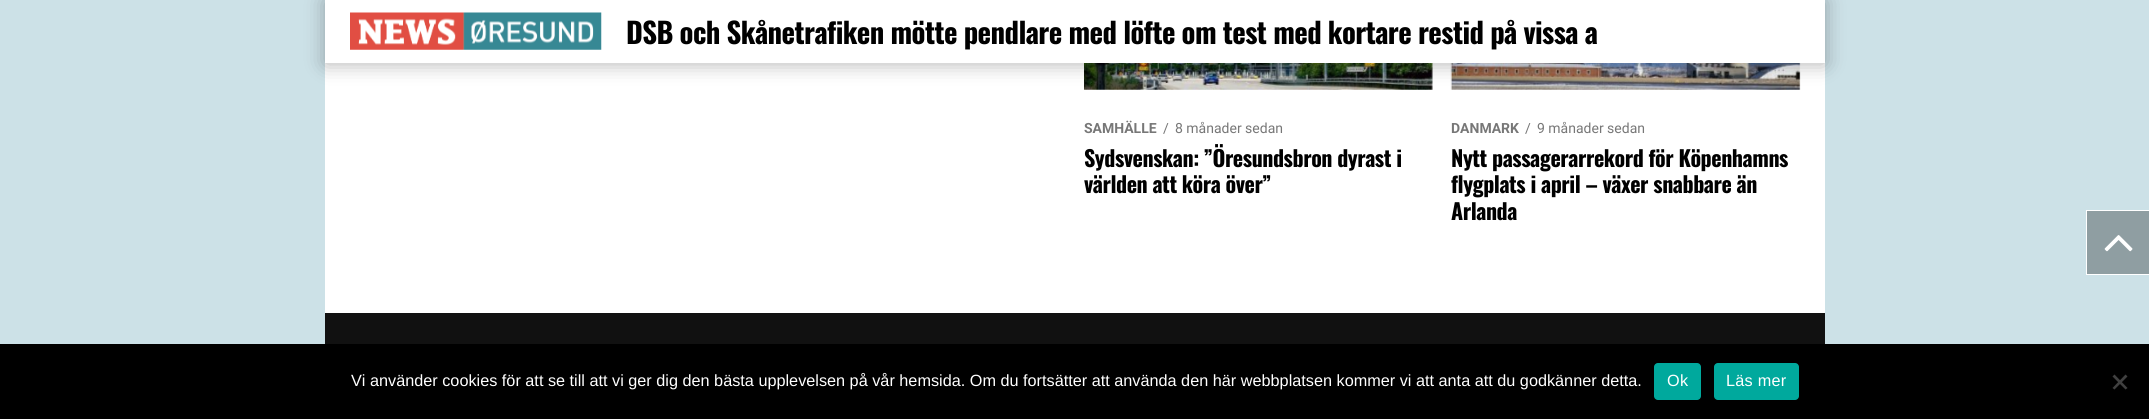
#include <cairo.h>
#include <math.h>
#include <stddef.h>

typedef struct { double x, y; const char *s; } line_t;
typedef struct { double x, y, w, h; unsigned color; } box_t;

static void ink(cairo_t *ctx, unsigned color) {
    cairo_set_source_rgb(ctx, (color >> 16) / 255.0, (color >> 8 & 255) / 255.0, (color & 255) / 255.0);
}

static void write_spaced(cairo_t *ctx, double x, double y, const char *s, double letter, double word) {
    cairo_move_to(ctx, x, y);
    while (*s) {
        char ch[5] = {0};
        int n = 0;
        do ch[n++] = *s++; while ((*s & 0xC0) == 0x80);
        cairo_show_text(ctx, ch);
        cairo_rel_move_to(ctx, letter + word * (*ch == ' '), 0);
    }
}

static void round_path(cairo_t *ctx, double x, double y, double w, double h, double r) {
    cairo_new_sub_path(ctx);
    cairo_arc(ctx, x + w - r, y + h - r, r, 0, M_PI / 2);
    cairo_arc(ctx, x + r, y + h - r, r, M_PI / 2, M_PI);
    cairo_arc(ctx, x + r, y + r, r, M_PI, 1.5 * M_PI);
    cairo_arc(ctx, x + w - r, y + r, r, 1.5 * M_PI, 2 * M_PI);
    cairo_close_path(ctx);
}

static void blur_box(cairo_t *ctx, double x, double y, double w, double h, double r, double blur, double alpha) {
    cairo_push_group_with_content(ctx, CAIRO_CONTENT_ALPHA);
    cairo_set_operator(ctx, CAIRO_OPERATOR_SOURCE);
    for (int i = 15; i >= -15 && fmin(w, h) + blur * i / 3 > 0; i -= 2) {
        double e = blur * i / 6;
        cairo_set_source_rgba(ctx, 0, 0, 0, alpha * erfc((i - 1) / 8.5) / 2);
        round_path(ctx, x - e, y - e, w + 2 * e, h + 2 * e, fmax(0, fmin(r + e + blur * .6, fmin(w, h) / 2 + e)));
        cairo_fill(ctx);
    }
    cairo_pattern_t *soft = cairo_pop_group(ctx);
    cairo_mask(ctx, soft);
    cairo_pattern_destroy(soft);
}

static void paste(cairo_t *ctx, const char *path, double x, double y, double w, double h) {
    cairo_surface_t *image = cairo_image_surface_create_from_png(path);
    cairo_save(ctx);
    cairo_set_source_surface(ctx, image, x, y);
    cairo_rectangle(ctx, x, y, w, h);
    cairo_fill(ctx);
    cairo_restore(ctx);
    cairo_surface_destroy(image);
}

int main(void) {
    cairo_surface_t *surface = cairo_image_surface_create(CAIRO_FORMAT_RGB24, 2149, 419);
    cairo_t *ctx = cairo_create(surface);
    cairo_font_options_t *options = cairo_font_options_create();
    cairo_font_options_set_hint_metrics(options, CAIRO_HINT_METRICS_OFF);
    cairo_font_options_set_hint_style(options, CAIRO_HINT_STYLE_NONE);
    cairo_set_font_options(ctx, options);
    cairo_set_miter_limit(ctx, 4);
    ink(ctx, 0xCCE1E7);
    cairo_paint(ctx);
    ink(ctx, 0xFFFFFF);
    cairo_rectangle(ctx, 325, 63, 1500, 250);
    cairo_fill(ctx);
    paste(ctx, "media/2.png", 1084, 63, 349, 27);
    paste(ctx, "media/3.png", 1450, 63, 351, 27);
    ink(ctx, 0x000000);
    blur_box(ctx, 325, 1, 1500, 63, 0, 10, 0.3);
    ink(ctx, 0xFFFFFF);
    cairo_rectangle(ctx, 325, 0, 1500, 63);
    cairo_fill(ctx);
    paste(ctx, "media/1.png", 350, 12, 252, 38);
    cairo_select_font_face(ctx, "Oswald", CAIRO_FONT_SLANT_NORMAL, CAIRO_FONT_WEIGHT_BOLD);
    cairo_set_font_size(ctx, 28.75);
    ink(ctx, 0x000000);
    write_spaced(ctx, 626, 44, "DSB och Skånetrafiken mötte pendlare med löfte om test med kortare restid på vissa a", -0.58, 0);
    cairo_select_font_face(ctx, "Roboto", CAIRO_FONT_SLANT_NORMAL, CAIRO_FONT_WEIGHT_BOLD);
    cairo_set_font_size(ctx, 14);
    ink(ctx, 0x777777);
    cairo_move_to(ctx, 1084, 133);
    cairo_show_text(ctx, "SAMHÄLLE");
    cairo_select_font_face(ctx, "Roboto", CAIRO_FONT_SLANT_NORMAL, CAIRO_FONT_WEIGHT_NORMAL);
    cairo_move_to(ctx, 1163, 133);
    cairo_show_text(ctx, "/");
    cairo_move_to(ctx, 1175, 133);
    cairo_show_text(ctx, "8 månader sedan");
    cairo_select_font_face(ctx, "Oswald", CAIRO_FONT_SLANT_NORMAL, CAIRO_FONT_WEIGHT_BOLD);
    cairo_set_font_size(ctx, 22);
    ink(ctx, 0x000000);
    write_spaced(ctx, 1084, 167, "Sydsvenskan: ”Öresundsbron dyrast i", -0.45, 0);
    write_spaced(ctx, 1084, 193, "världen att köra över”", -0.45, 0);
    cairo_select_font_face(ctx, "Roboto", CAIRO_FONT_SLANT_NORMAL, CAIRO_FONT_WEIGHT_BOLD);
    cairo_set_font_size(ctx, 14);
    ink(ctx, 0x777777);
    cairo_move_to(ctx, 1451, 133);
    cairo_show_text(ctx, "DANMARK");
    cairo_select_font_face(ctx, "Roboto", CAIRO_FONT_SLANT_NORMAL, CAIRO_FONT_WEIGHT_NORMAL);
    cairo_move_to(ctx, 1525, 133);
    cairo_show_text(ctx, "/");
    cairo_move_to(ctx, 1537, 133);
    cairo_show_text(ctx, "9 månader sedan");
    cairo_select_font_face(ctx, "Oswald", CAIRO_FONT_SLANT_NORMAL, CAIRO_FONT_WEIGHT_BOLD);
    cairo_set_font_size(ctx, 22);
    ink(ctx, 0x000000);
    {
        static const line_t items[] = {
            {1451, 167, "Nytt passagerarrekord för Köpenhamns"},
            {1451, 193, "flygplats i april – växer snabbare än"},
            {1451, 220, "Arlanda"},
        };
        for (size_t i = 0; i < sizeof items / sizeof *items; i++) {
            write_spaced(ctx, items[i].x, items[i].y, items[i].s, -0.45, 0);
        }
    }
    {
        static const box_t items[] = {
            {325, 313, 1500, 31, 0x111111},
            {2087, 211, 62, 63, 0x8F9EA2},
            {2086, 210, 63, 1, 0xFFFFFF},
            {2086, 274, 63, 1, 0xFFFFFF},
            {2086, 210, 1, 65, 0xFFFFFF},
        };
        for (size_t i = 0; i < sizeof items / sizeof *items; i++) {
            ink(ctx, items[i].color);
            cairo_rectangle(ctx, items[i].x, items[i].y, items[i].w, items[i].h);
            cairo_fill(ctx);
        }
    }
    paste(ctx, "media/4.png", 2104, 235, 29, 17);
    ink(ctx, 0x000000);
    cairo_rectangle(ctx, 0, 344, 2149, 75);
    cairo_fill(ctx);
    cairo_select_font_face(ctx, "Liberation Sans", CAIRO_FONT_SLANT_NORMAL, CAIRO_FONT_WEIGHT_NORMAL);
    cairo_set_font_size(ctx, 16.25);
    ink(ctx, 0xFFFFFF);
    cairo_move_to(ctx, 351, 386);
    cairo_show_text(ctx, "Vi använder cookies för att se till att vi ger dig den bästa upplevelsen på vår hemsida. Om du fortsätter att använda den här webbplatsen kommer vi att anta att du godkänner detta.");
    ink(ctx, 0x00A99D);
    round_path(ctx, 1654, 363, 47, 37, 4);
    cairo_fill(ctx);
    ink(ctx, 0xFFFFFF);
    write_spaced(ctx, 1667, 386, "Ok", 0.25, 0);
    ink(ctx, 0x00A99D);
    round_path(ctx, 1714, 363, 85, 37, 4);
    cairo_fill(ctx);
    ink(ctx, 0xFFFFFF);
    write_spaced(ctx, 1726, 386, "Läs mer", 0.25, 0);
    ink(ctx, 0x404040);
    cairo_new_path(ctx);
    cairo_move_to(ctx, 2125.5, 374.5);
    cairo_line_to(ctx, 2127.5, 376.5);
    cairo_line_to(ctx, 2114.5, 389.5);
    cairo_line_to(ctx, 2112.5, 388);
    cairo_close_path(ctx);
    cairo_fill(ctx);
    cairo_new_path(ctx);
    cairo_move_to(ctx, 2112.5, 376.5);
    cairo_line_to(ctx, 2114.5, 374.5);
    cairo_line_to(ctx, 2127.5, 388);
    cairo_line_to(ctx, 2125.5, 389.5);
    cairo_close_path(ctx);
    cairo_fill(ctx);
    cairo_surface_write_to_png(surface, "image.png");
    cairo_font_options_destroy(options);
    cairo_destroy(ctx);
    cairo_surface_destroy(surface);
    return 0;
}
